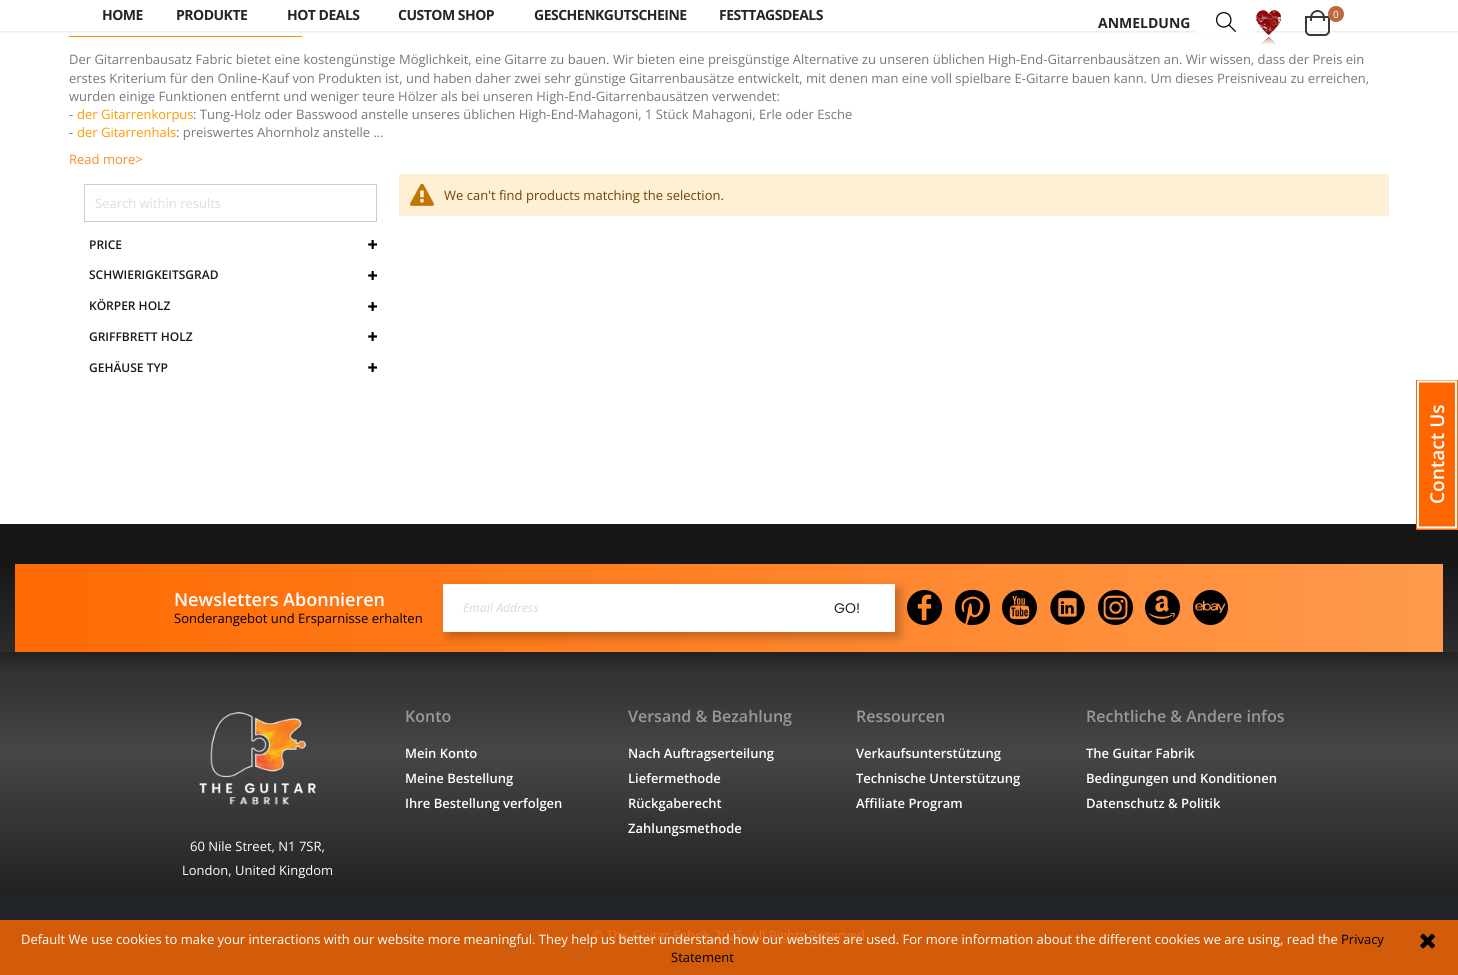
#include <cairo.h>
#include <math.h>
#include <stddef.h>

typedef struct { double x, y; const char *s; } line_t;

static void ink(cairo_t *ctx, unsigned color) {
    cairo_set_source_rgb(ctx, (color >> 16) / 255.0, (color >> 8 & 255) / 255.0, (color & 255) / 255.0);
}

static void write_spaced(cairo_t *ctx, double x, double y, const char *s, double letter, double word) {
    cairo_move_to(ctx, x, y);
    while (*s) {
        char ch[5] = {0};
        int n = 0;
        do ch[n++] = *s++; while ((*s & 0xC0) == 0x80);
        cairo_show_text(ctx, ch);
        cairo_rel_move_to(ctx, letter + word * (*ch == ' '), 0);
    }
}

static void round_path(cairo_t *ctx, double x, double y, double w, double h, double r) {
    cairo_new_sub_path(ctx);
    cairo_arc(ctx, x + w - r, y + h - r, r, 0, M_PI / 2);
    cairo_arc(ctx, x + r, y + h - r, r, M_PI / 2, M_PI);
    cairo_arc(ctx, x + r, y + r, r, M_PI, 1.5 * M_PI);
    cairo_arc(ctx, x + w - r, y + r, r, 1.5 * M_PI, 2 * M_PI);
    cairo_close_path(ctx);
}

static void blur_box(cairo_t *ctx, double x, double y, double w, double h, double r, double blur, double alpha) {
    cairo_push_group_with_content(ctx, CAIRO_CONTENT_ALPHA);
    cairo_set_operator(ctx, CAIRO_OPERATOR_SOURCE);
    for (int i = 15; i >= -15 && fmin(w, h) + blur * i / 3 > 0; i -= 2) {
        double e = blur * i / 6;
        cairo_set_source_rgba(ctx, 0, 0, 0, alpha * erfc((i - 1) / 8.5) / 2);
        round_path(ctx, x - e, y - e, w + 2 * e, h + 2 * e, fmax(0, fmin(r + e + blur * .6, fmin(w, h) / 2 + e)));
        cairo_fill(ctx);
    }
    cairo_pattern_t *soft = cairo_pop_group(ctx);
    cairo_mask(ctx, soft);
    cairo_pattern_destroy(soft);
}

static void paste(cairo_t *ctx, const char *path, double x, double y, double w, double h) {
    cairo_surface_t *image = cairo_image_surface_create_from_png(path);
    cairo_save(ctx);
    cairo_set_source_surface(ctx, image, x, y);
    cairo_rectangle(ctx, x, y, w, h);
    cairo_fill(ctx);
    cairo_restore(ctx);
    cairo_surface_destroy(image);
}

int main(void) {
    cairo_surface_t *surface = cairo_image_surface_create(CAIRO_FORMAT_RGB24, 1458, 975);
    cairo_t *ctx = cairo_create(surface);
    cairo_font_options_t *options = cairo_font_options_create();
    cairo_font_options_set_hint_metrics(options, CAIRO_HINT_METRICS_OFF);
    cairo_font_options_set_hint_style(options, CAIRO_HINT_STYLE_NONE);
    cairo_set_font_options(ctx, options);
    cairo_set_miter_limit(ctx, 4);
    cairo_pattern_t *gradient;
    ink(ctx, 0xFFFFFF);
    cairo_paint(ctx);
    ink(ctx, 0x000000);
    blur_box(ctx, 0, 1, 1458, 31, 0, 1, 0.1);
    ink(ctx, 0xFFFFFF);
    cairo_rectangle(ctx, 0, 0, 1458, 31);
    cairo_fill(ctx);
    cairo_select_font_face(ctx, "Open Sans", CAIRO_FONT_SLANT_NORMAL, CAIRO_FONT_WEIGHT_BOLD);
    cairo_set_font_size(ctx, 14);
    ink(ctx, 0x222529);
    {
        static const line_t items[] = {
            {102, 20, "HOME"},
            {176, 20, "PRODUKTE"},
            {287, 20, "HOT DEALS"},
            {398, 20, "CUSTOM SHOP"},
            {534, 20, "GESCHENKGUTSCHEINE"},
            {719, 20, "FESTTAGSDEALS"},
        };
        for (size_t i = 0; i < sizeof items / sizeof *items; i++) {
            write_spaced(ctx, items[i].x, items[i].y, items[i].s, -0.5, 0);
        }
    }
    cairo_move_to(ctx, 1098, 28);
    cairo_show_text(ctx, "ANMELDUNG");
    ink(ctx, 0xFFFFFF);
    cairo_rectangle(ctx, 1195, 31, 61, 2);
    cairo_fill(ctx);
    paste(ctx, "media/1.png", 1215, 12, 21, 20);
    paste(ctx, "media/2.png", 1256, 10, 25, 35);
    cairo_new_path(ctx);
    cairo_move_to(ctx, 1306, 17);
    cairo_line_to(ctx, 1329, 17);
    cairo_line_to(ctx, 1329, 31);
    cairo_curve_to(ctx, 1329, 33, 1327, 35, 1325, 35);
    cairo_line_to(ctx, 1310, 35);
    cairo_curve_to(ctx, 1308, 35, 1306, 33, 1306, 31);
    cairo_close_path(ctx);
    cairo_set_source_rgba(ctx, 0.133, 0.145, 0.161, 0.9);
    cairo_stroke(ctx);
    ink(ctx, 0x383B3E);
    cairo_set_fill_rule(ctx, CAIRO_FILL_RULE_EVEN_ODD);
    cairo_new_path(ctx);
    cairo_move_to(ctx, 1317.5, 10);
    cairo_curve_to(ctx, 1321.5, 10, 1325, 13.5, 1325, 17.5);
    cairo_line_to(ctx, 1325, 21);
    cairo_line_to(ctx, 1310, 21);
    cairo_line_to(ctx, 1310, 17.5);
    cairo_curve_to(ctx, 1310, 13.5, 1313.5, 10, 1317.5, 10);
    cairo_close_path(ctx);
    cairo_move_to(ctx, 1317.5, 12);
    cairo_curve_to(ctx, 1323, 12, 1323, 17, 1323, 21);
    cairo_line_to(ctx, 1312, 21);
    cairo_curve_to(ctx, 1312, 17, 1312, 12, 1317.5, 12);
    cairo_close_path(ctx);
    cairo_fill(ctx);
    ink(ctx, 0xBB693D);
    cairo_arc(ctx, 1336, 14, 8, 0, 2 * M_PI);
    cairo_fill(ctx);
    cairo_select_font_face(ctx, "Open Sans", CAIRO_FONT_SLANT_NORMAL, CAIRO_FONT_WEIGHT_NORMAL);
    cairo_set_font_size(ctx, 10);
    ink(ctx, 0xFFFFFF);
    cairo_move_to(ctx, 1333, 18);
    cairo_show_text(ctx, "0");
    ink(ctx, 0xFF9900);
    cairo_rectangle(ctx, 69, 36, 233, 1);
    cairo_fill(ctx);
    cairo_set_font_size(ctx, 13);
    ink(ctx, 0x777777);
    {
        static const line_t items[] = {
            {69, 64, "Der Gitarrenbausatz Fabric bietet eine kostengünstige Möglichkeit, eine Gitarre zu bauen. Wir bieten eine preisgünstige Alternative zu unseren üblichen High-End-Gitarrenbausätzen an. Wir wissen, dass der Preis ein"},
            {69, 83, "erstes Kriterium für den Online-Kauf von Produkten ist, und haben daher zwei sehr günstige Gitarrenbausätze entwickelt, mit denen man eine voll spielbare E-Gitarre bauen kann. Um dieses Preisniveau zu erreichen,"},
            {69, 101, "wurden einige Funktionen entfernt und weniger teure Hölzer als bei unseren High-End-Gitarrenbausätzen verwendet:"},
            {69, 119, "-"},
        };
        for (size_t i = 0; i < sizeof items / sizeof *items; i++) {
            cairo_move_to(ctx, items[i].x, items[i].y);
            cairo_show_text(ctx, items[i].s);
        }
    }
    ink(ctx, 0xFF9900);
    cairo_move_to(ctx, 77, 119);
    cairo_show_text(ctx, "der Gitarrenkorpus");
    ink(ctx, 0x777777);
    cairo_move_to(ctx, 193, 119);
    cairo_show_text(ctx, ": Tung-Holz oder Basswood anstelle unseres üblichen High-End-Mahagoni, 1 Stück Mahagoni, Erle oder Esche");
    cairo_move_to(ctx, 69, 137);
    cairo_show_text(ctx, "-");
    ink(ctx, 0xFF9900);
    cairo_move_to(ctx, 77, 137);
    cairo_show_text(ctx, "der Gitarrenhals");
    ink(ctx, 0x777777);
    cairo_move_to(ctx, 176, 137);
    cairo_show_text(ctx, ": preiswertes Ahornholz anstelle ...");
    ink(ctx, 0xFC8A26);
    cairo_move_to(ctx, 69, 164);
    cairo_show_text(ctx, "Read more>");
    cairo_rectangle(ctx, 84.5, 184.5, 292, 37);
    ink(ctx, 0xCCCCCC);
    cairo_set_line_width(ctx, 1);
    cairo_stroke(ctx);
    ink(ctx, 0xDDDDDD);
    cairo_move_to(ctx, 95, 208);
    cairo_show_text(ctx, "Search within results");
    cairo_select_font_face(ctx, "Open Sans SemiBold", CAIRO_FONT_SLANT_NORMAL, CAIRO_FONT_WEIGHT_NORMAL);
    cairo_set_font_size(ctx, 12);
    ink(ctx, 0x141A1F);
    cairo_move_to(ctx, 89, 249);
    cairo_show_text(ctx, "PRICE");
    paste(ctx, "media/3.png", 368, 240, 9, 9);
    cairo_move_to(ctx, 89, 279);
    cairo_show_text(ctx, "SCHWIERIGKEITSGRAD");
    paste(ctx, "media/3.png", 368, 271, 9, 9);
    cairo_move_to(ctx, 89, 310);
    cairo_show_text(ctx, "KÖRPER HOLZ");
    paste(ctx, "media/3.png", 368, 302, 9, 9);
    cairo_move_to(ctx, 89, 341);
    cairo_show_text(ctx, "GRIFFBRETT HOLZ");
    paste(ctx, "media/3.png", 368, 332, 9, 9);
    cairo_move_to(ctx, 89, 372);
    cairo_show_text(ctx, "GEHÄUSE TYP");
    paste(ctx, "media/3.png", 368, 363, 9, 9);
    ink(ctx, 0xFDF0D5);
    cairo_rectangle(ctx, 399, 174, 990, 42);
    cairo_fill(ctx);
    paste(ctx, "media/4.png", 410, 184, 24, 22);
    cairo_select_font_face(ctx, "Open Sans", CAIRO_FONT_SLANT_NORMAL, CAIRO_FONT_WEIGHT_NORMAL);
    cairo_set_font_size(ctx, 13);
    ink(ctx, 0x6F4400);
    cairo_move_to(ctx, 444, 200);
    cairo_show_text(ctx, "We can't find products matching the selection.");
    gradient = cairo_pattern_create_linear(729, 524, 729, 975);
    cairo_pattern_add_color_stop_rgba(gradient, 0.08, 0.086, 0.086, 0.086, 1);
    cairo_pattern_add_color_stop_rgba(gradient, 0.51, 0.275, 0.275, 0.275, 1);
    cairo_pattern_add_color_stop_rgba(gradient, 0.92, 0.086, 0.086, 0.086, 1);
    cairo_set_source(ctx, gradient);
    cairo_pattern_destroy(gradient);
    cairo_rectangle(ctx, 0, 524, 1458, 371);
    cairo_fill(ctx);
    ink(ctx, 0xFF6600);
    cairo_rectangle(ctx, 1416, 380, 42, 150);
    cairo_fill(ctx);
    cairo_new_path(ctx);
    cairo_move_to(ctx, 1418, 527.5);
    cairo_line_to(ctx, 1418, 381.5);
    cairo_line_to(ctx, 1456, 381.5);
    cairo_line_to(ctx, 1456, 527.5);
    cairo_close_path(ctx);
    ink(ctx, 0xFFFFFF);
    cairo_set_line_width(ctx, 2);
    cairo_stroke(ctx);
    cairo_select_font_face(ctx, "Open Sans SemiBold", CAIRO_FONT_SLANT_NORMAL, CAIRO_FONT_WEIGHT_NORMAL);
    cairo_set_font_size(ctx, 19);
    cairo_save(ctx);
    cairo_translate(ctx, 1444, 504);
    cairo_rotate(ctx, -90 * M_PI / 180);
    cairo_move_to(ctx, 0, 0);
    cairo_show_text(ctx, "Contact Us");
    cairo_restore(ctx);
    cairo_save(ctx);
    cairo_set_fill_rule(ctx, CAIRO_FILL_RULE_WINDING);
    cairo_rectangle(ctx, 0, 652, 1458, 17);
    cairo_clip(ctx);
    ink(ctx, 0x000000);
    blur_box(ctx, 0, 574, 1458, 88, 0, 5, 0.25);
    cairo_restore(ctx);
    gradient = cairo_pattern_create_linear(15, 608, 1443, 608);
    cairo_pattern_add_color_stop_rgba(gradient, 0, 1, 0.416, 0.008, 1);
    cairo_pattern_add_color_stop_rgba(gradient, 1, 1, 0.604, 0.298, 1);
    cairo_set_source(ctx, gradient);
    cairo_pattern_destroy(gradient);
    cairo_rectangle(ctx, 15, 564, 1428, 88);
    cairo_fill(ctx);
    cairo_set_font_size(ctx, 18);
    ink(ctx, 0xFFFFFF);
    cairo_move_to(ctx, 174, 606);
    cairo_show_text(ctx, "Newsletters Abonnieren");
    cairo_select_font_face(ctx, "Open Sans", CAIRO_FONT_SLANT_NORMAL, CAIRO_FONT_WEIGHT_NORMAL);
    cairo_set_font_size(ctx, 13);
    ink(ctx, 0x000000);
    cairo_move_to(ctx, 174, 623);
    cairo_show_text(ctx, "Sonderangebot und Ersparnisse erhalten");
    paste(ctx, "media/5.png", 907, 590, 35, 35);
    ink(ctx, 0x000000);
    blur_box(ctx, 448, 589, 452, 48, 0, 5, 0.25);
    ink(ctx, 0xFFFFFF);
    cairo_rectangle(ctx, 443, 584, 452, 48);
    cairo_fill(ctx);
    cairo_select_font_face(ctx, "Open Sans Medium", CAIRO_FONT_SLANT_ITALIC, CAIRO_FONT_WEIGHT_NORMAL);
    cairo_set_font_size(ctx, 12);
    ink(ctx, 0xDDDDDD);
    cairo_move_to(ctx, 463, 612);
    cairo_show_text(ctx, "Email Address");
    cairo_select_font_face(ctx, "Poppins", CAIRO_FONT_SLANT_NORMAL, CAIRO_FONT_WEIGHT_NORMAL);
    cairo_set_font_size(ctx, 14);
    ink(ctx, 0x222529);
    cairo_move_to(ctx, 834, 613);
    cairo_show_text(ctx, "GO!");
    paste(ctx, "media/6.png", 955, 590, 35, 35);
    paste(ctx, "media/7.png", 1002, 590, 35, 35);
    paste(ctx, "media/8.png", 1050, 590, 35, 35);
    paste(ctx, "media/9.png", 1098, 590, 35, 35);
    paste(ctx, "media/10.png", 1145, 590, 35, 35);
    paste(ctx, "media/11.png", 1193, 590, 35, 35);
    cairo_select_font_face(ctx, "Open Sans SemiBold", CAIRO_FONT_SLANT_NORMAL, CAIRO_FONT_WEIGHT_NORMAL);
    cairo_set_font_size(ctx, 16);
    ink(ctx, 0x999999);
    cairo_move_to(ctx, 405, 722);
    cairo_show_text(ctx, "Konto");
    cairo_set_font_size(ctx, 13);
    ink(ctx, 0xFFFFFF);
    {
        static const line_t items[] = {
            {405, 758, "Mein Konto"},
            {405, 783, "Meine Bestellung"},
            {405, 808, "Ihre Bestellung verfolgen"},
        };
        for (size_t i = 0; i < sizeof items / sizeof *items; i++) {
            cairo_move_to(ctx, items[i].x, items[i].y);
            cairo_show_text(ctx, items[i].s);
        }
    }
    cairo_set_font_size(ctx, 16);
    ink(ctx, 0x999999);
    cairo_move_to(ctx, 628, 722);
    cairo_show_text(ctx, "Versand & Bezahlung");
    cairo_set_font_size(ctx, 13);
    ink(ctx, 0xFFFFFF);
    {
        static const line_t items[] = {
            {628, 758, "Nach Auftragserteilung"},
            {628, 783, "Liefermethode"},
            {628, 808, "Rückgaberecht"},
            {628, 833, "Zahlungsmethode"},
        };
        for (size_t i = 0; i < sizeof items / sizeof *items; i++) {
            cairo_move_to(ctx, items[i].x, items[i].y);
            cairo_show_text(ctx, items[i].s);
        }
    }
    cairo_set_font_size(ctx, 16);
    ink(ctx, 0x999999);
    cairo_move_to(ctx, 856, 722);
    cairo_show_text(ctx, "Ressourcen");
    cairo_set_font_size(ctx, 13);
    ink(ctx, 0xFFFFFF);
    {
        static const line_t items[] = {
            {856, 758, "Verkaufsunterstützung"},
            {856, 783, "Technische Unterstützung"},
            {856, 808, "Affiliate Program"},
        };
        for (size_t i = 0; i < sizeof items / sizeof *items; i++) {
            cairo_move_to(ctx, items[i].x, items[i].y);
            cairo_show_text(ctx, items[i].s);
        }
    }
    cairo_set_font_size(ctx, 16);
    ink(ctx, 0x999999);
    cairo_move_to(ctx, 1086, 722);
    cairo_show_text(ctx, "Rechtliche & Andere infos");
    cairo_set_font_size(ctx, 13);
    ink(ctx, 0xFFFFFF);
    {
        static const line_t items[] = {
            {1086, 758, "The Guitar Fabrik"},
            {1086, 783, "Bedingungen und Konditionen"},
            {1086, 808, "Datenschutz & Politik"},
        };
        for (size_t i = 0; i < sizeof items / sizeof *items; i++) {
            cairo_move_to(ctx, items[i].x, items[i].y);
            cairo_show_text(ctx, items[i].s);
        }
    }
    paste(ctx, "media/12.png", 199, 712, 117, 93);
    cairo_select_font_face(ctx, "Open Sans", CAIRO_FONT_SLANT_NORMAL, CAIRO_FONT_WEIGHT_NORMAL);
    cairo_move_to(ctx, 190, 851);
    cairo_show_text(ctx, "60 Nile Street, N1 7SR,");
    cairo_move_to(ctx, 182, 875);
    cairo_show_text(ctx, "London, United Kingdom");
    ink(ctx, 0x222529);
    cairo_rectangle(ctx, 0, 895, 1458, 25);
    cairo_fill(ctx);
    ink(ctx, 0xD35C0A);
    cairo_rectangle(ctx, 0, 920, 1458, 55);
    cairo_fill(ctx);
    ink(ctx, 0xEB7320);
    cairo_move_to(ctx, 592, 940);
    cairo_show_text(ctx, "© The Guitar Fabrik 2025. All Rights Reserved");
    ink(ctx, 0xFFFFFF);
    cairo_move_to(ctx, 21, 944);
    cairo_show_text(ctx, "Default We use cookies to make your interactions with our website more meaningful. They help us better understand how our websites are used. For more information about the different cookies we are using, read the");
    ink(ctx, 0x000000);
    cairo_move_to(ctx, 1341, 944);
    cairo_show_text(ctx, "Privacy");
    cairo_move_to(ctx, 671, 962);
    cairo_show_text(ctx, "Statement");
    paste(ctx, "media/13.png", 1420, 933, 15, 16);
    cairo_surface_write_to_png(surface, "image.png");
    cairo_font_options_destroy(options);
    cairo_destroy(ctx);
    cairo_surface_destroy(surface);
    return 0;
}
